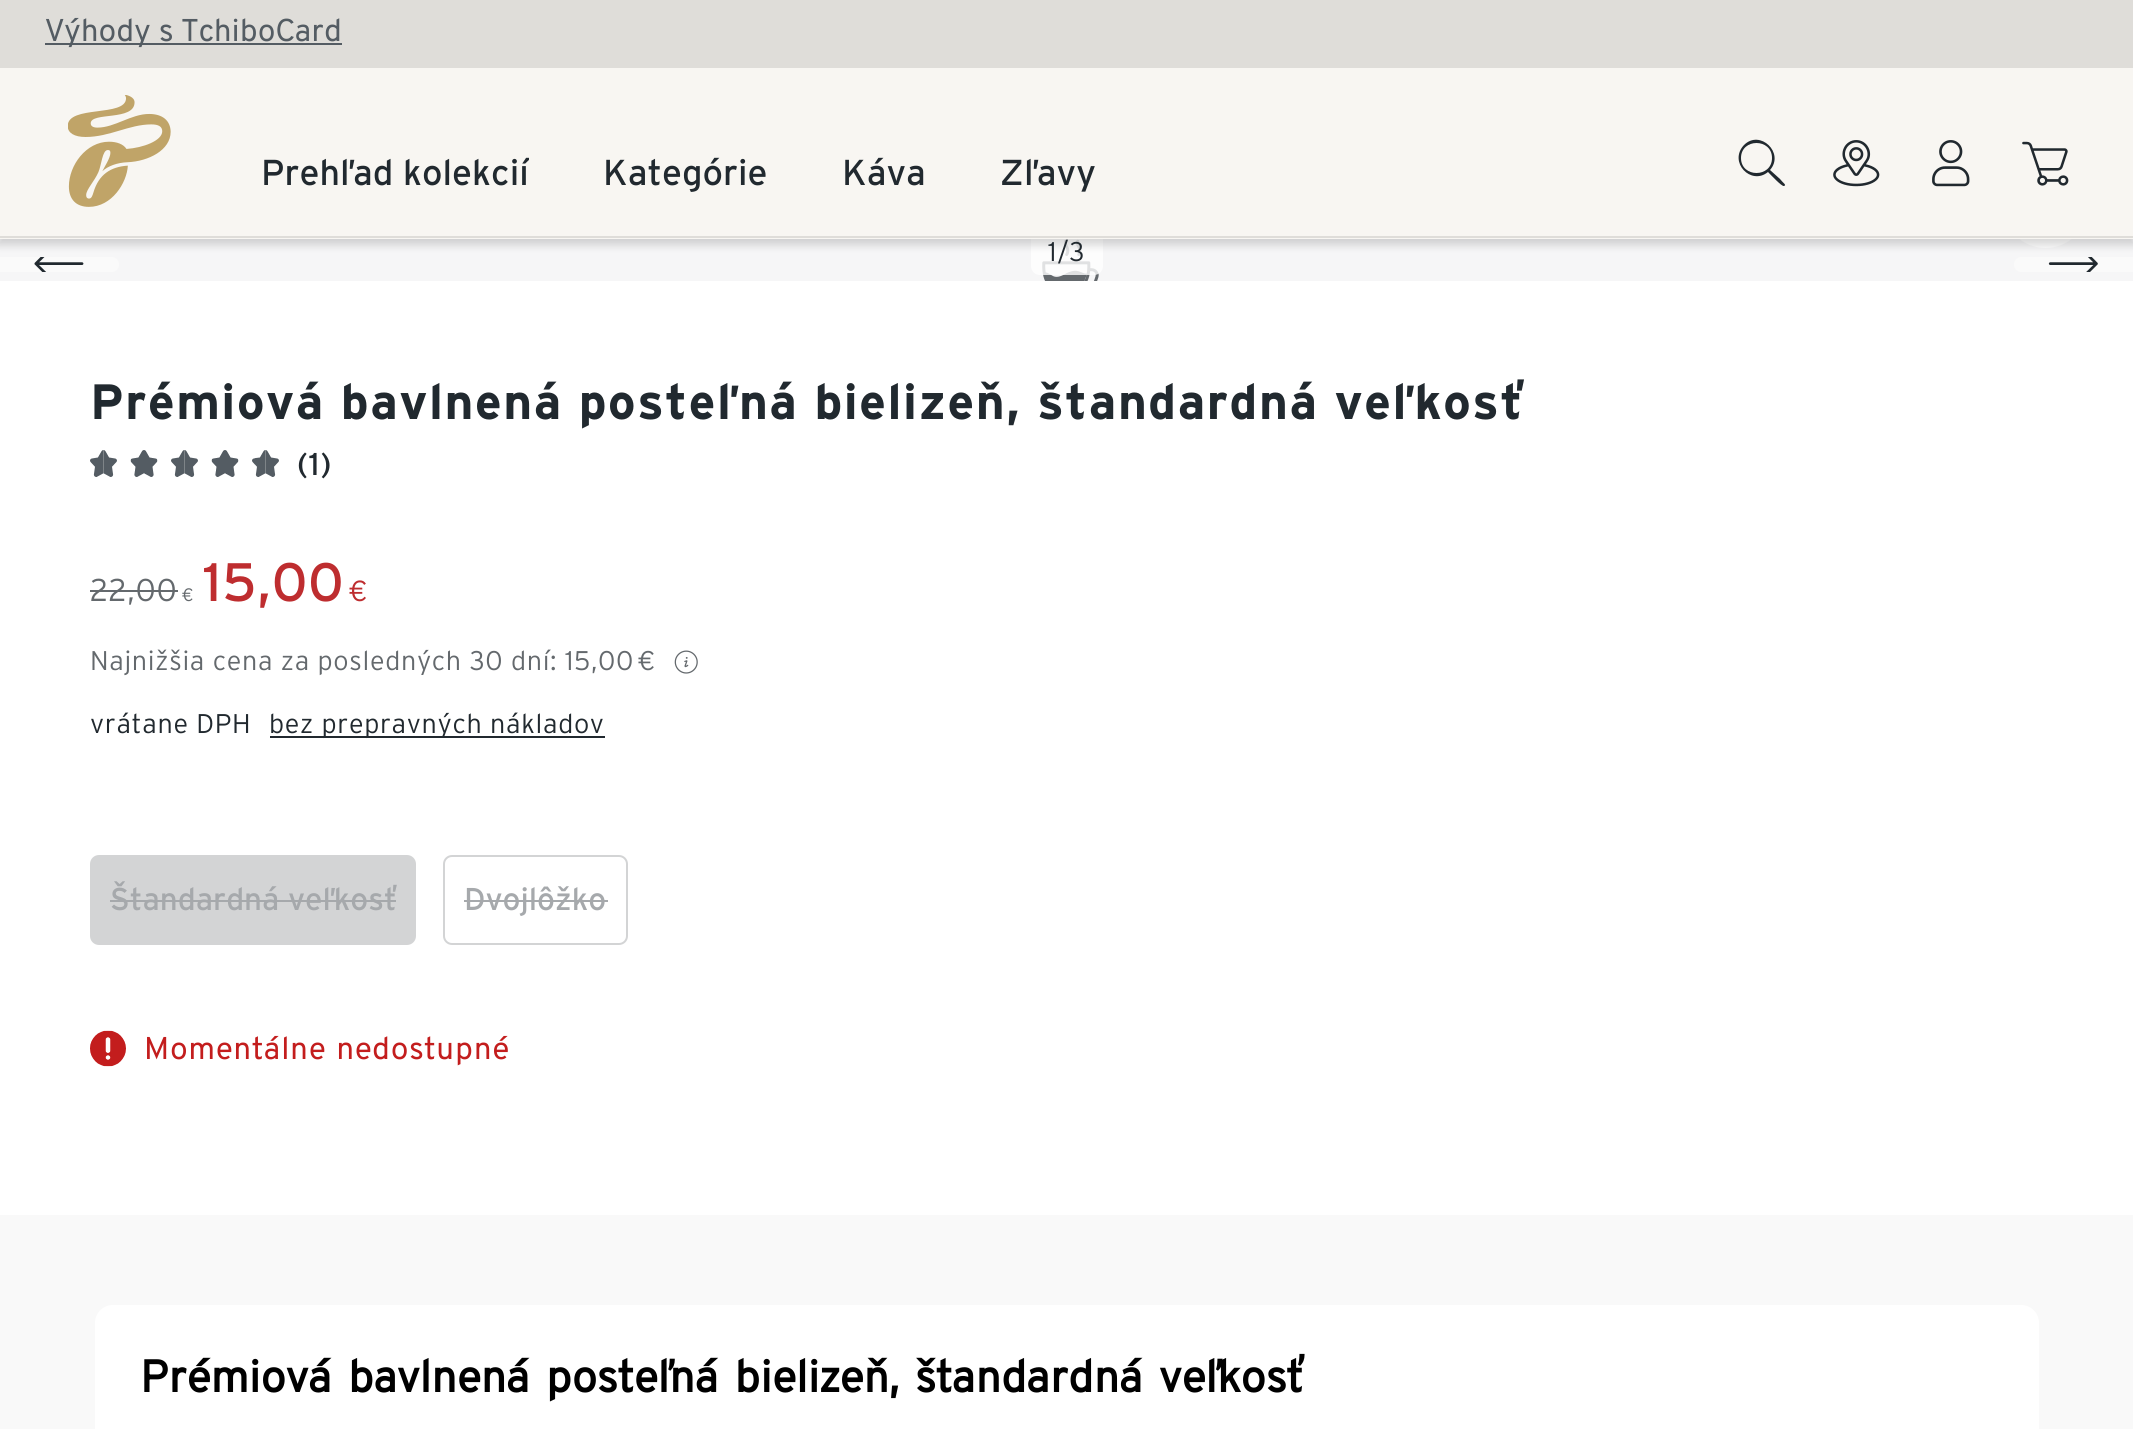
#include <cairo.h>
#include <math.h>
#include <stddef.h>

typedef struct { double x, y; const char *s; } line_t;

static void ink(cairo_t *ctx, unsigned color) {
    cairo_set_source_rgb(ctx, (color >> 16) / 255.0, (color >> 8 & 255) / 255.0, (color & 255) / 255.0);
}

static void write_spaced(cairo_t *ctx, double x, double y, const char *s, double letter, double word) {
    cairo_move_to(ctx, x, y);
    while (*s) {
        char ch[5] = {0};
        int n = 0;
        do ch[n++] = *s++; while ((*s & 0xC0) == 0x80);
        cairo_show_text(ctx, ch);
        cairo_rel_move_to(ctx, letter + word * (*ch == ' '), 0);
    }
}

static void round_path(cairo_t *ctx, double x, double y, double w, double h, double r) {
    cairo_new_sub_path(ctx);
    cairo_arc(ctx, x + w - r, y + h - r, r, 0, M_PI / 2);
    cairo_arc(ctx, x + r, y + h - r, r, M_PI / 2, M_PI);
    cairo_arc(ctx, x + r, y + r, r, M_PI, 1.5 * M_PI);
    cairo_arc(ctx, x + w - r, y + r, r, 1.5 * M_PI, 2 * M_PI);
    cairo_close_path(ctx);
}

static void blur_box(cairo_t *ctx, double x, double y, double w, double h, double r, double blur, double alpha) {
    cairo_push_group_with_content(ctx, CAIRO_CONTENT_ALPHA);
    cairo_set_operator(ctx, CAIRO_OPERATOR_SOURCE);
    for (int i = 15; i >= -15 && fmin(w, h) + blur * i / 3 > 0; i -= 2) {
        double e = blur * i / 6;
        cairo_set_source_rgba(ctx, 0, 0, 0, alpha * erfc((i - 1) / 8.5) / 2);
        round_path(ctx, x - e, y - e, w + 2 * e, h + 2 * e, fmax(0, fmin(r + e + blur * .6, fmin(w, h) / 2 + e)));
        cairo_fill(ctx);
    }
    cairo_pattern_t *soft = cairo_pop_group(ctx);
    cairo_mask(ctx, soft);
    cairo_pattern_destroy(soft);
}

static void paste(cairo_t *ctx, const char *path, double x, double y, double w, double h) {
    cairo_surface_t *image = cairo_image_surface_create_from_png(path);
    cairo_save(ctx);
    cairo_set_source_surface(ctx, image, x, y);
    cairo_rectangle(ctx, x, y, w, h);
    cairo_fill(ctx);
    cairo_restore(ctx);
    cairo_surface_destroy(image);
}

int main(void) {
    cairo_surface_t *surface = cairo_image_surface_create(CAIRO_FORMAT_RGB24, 2133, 1429);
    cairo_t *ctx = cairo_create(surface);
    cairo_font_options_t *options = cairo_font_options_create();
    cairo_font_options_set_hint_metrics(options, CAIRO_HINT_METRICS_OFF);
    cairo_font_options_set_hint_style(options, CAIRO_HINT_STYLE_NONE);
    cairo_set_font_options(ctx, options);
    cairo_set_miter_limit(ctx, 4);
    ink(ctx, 0xFFFFFF);
    cairo_paint(ctx);
    ink(ctx, 0xF6F6F7);
    cairo_rectangle(ctx, 0, 239, 2133, 42);
    cairo_fill(ctx);
    cairo_set_source_rgba(ctx, 1, 1, 1, 0.85);
    round_path(ctx, 2003, 162, 85, 86, 42.5);
    cairo_fill(ctx);
    paste(ctx, "media/5.png", 1042, 239, 57, 42);
    cairo_set_source_rgba(ctx, 1, 1, 1, 0.8);
    cairo_new_path(ctx);
    cairo_move_to(ctx, 1031, 239);
    cairo_line_to(ctx, 1103, 239);
    cairo_line_to(ctx, 1103, 266);
    cairo_curve_to(ctx, 1103, 271, 1099, 275, 1094, 275);
    cairo_line_to(ctx, 1040, 275);
    cairo_curve_to(ctx, 1035, 275, 1031, 271, 1031, 266);
    cairo_close_path(ctx);
    cairo_fill(ctx);
    ink(ctx, 0xFAFAFA);
    cairo_new_path(ctx);
    cairo_move_to(ctx, 0, 257);
    cairo_line_to(ctx, 111.5, 257);
    cairo_curve_to(ctx, 115.5, 257, 119, 260.5, 119, 264.5);
    cairo_curve_to(ctx, 119, 268.5, 115.5, 272, 111.5, 272);
    cairo_line_to(ctx, 0, 272);
    cairo_close_path(ctx);
    cairo_fill(ctx);
    paste(ctx, "media/6.png", 34, 257, 50, 15);
    cairo_new_path(ctx);
    cairo_move_to(ctx, 2021.5, 257);
    cairo_line_to(ctx, 2133, 257);
    cairo_line_to(ctx, 2133, 272);
    cairo_line_to(ctx, 2021.5, 272);
    cairo_curve_to(ctx, 2017.5, 272, 2014, 268.5, 2014, 264.5);
    cairo_curve_to(ctx, 2014, 260.5, 2017.5, 257, 2021.5, 257);
    cairo_close_path(ctx);
    cairo_fill(ctx);
    paste(ctx, "media/7.png", 2048, 257, 50, 15);
    ink(ctx, 0x000000);
    blur_box(ctx, -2, 2, 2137, 243, 0, 4.5, 0.16);
    ink(ctx, 0xDFDDD9);
    cairo_rectangle(ctx, 0, 0, 2133, 68);
    cairo_fill(ctx);
    ink(ctx, 0x545C63);
    cairo_rectangle(ctx, 45, 43, 297, 2);
    cairo_fill(ctx);
    cairo_select_font_face(ctx, "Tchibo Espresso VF", CAIRO_FONT_SLANT_NORMAL, CAIRO_FONT_WEIGHT_NORMAL);
    cairo_set_font_size(ctx, 31.5);
    write_spaced(ctx, 45, 41, "Výhody s TchiboCard", 0, 1);
    ink(ctx, 0xF8F6F2);
    cairo_rectangle(ctx, 0, 68, 2133, 171);
    cairo_fill(ctx);
    ink(ctx, 0xDFDDD9);
    cairo_rectangle(ctx, 0, 236, 2133, 2);
    cairo_fill(ctx);
    paste(ctx, "media/1.png", 68, 95, 103, 112);
    cairo_save(ctx);
    cairo_rectangle(ctx, 261, 155, 268, 81);
    cairo_clip(ctx);
    cairo_select_font_face(ctx, "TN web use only", CAIRO_FONT_SLANT_NORMAL, CAIRO_FONT_WEIGHT_NORMAL);
    cairo_set_font_size(ctx, 36);
    ink(ctx, 0x21292F);
    cairo_move_to(ctx, 261, 185);
    cairo_show_text(ctx, "Prehľad kolekcií");
    cairo_restore(ctx);
    cairo_select_font_face(ctx, "TN web use only", CAIRO_FONT_SLANT_NORMAL, CAIRO_FONT_WEIGHT_NORMAL);
    cairo_set_font_size(ctx, 36);
    ink(ctx, 0x21292F);
    {
        static const line_t items[] = {
            {603, 185, "Kategórie"},
            {842, 185, "Káva"},
            {1000, 185, "Zľavy"},
        };
        for (size_t i = 0; i < sizeof items / sizeof *items; i++) {
            cairo_move_to(ctx, items[i].x, items[i].y);
            cairo_show_text(ctx, items[i].s);
        }
    }
    cairo_new_path(ctx);
    cairo_move_to(ctx, 1770, 170);
    cairo_curve_to(ctx, 1785, 153, 1760, 129, 1744, 145);
    cairo_curve_to(ctx, 1728, 162, 1751, 186, 1768, 172);
    cairo_curve_to(ctx, 1770, 174, 1782, 187, 1784, 186);
    cairo_curve_to(ctx, 1787, 185, 1783, 183, 1780, 179);
    cairo_close_path(ctx);
    cairo_move_to(ctx, 1741, 158);
    cairo_curve_to(ctx, 1741, 138, 1772, 138, 1772, 158);
    cairo_curve_to(ctx, 1772, 178, 1741, 178, 1741, 158);
    cairo_close_path(ctx);
    cairo_fill(ctx);
    paste(ctx, "media/2.png", 1833, 140, 47, 47);
    paste(ctx, "media/3.png", 1932, 140, 38, 47);
    paste(ctx, "media/4.png", 2022, 141, 47, 45);
    cairo_select_font_face(ctx, "TN web use only Light", CAIRO_FONT_SLANT_NORMAL, CAIRO_FONT_WEIGHT_NORMAL);
    cairo_set_font_size(ctx, 27);
    write_spaced(ctx, 1048, 261, "1/3", 0.7, 0);
    cairo_select_font_face(ctx, "TN web use only", CAIRO_FONT_SLANT_NORMAL, CAIRO_FONT_WEIGHT_BOLD);
    cairo_set_font_size(ctx, 49.5);
    write_spaced(ctx, 90, 419, "Prémiová bavlnená posteľná bielizeň, štandardná veľkosť", 1.57, 0);
    paste(ctx, "media/8.png", 90, 450, 27, 27);
    paste(ctx, "media/9.png", 130, 450, 28, 27);
    paste(ctx, "media/8.png", 171, 450, 27, 27);
    paste(ctx, "media/9.png", 211, 450, 28, 27);
    paste(ctx, "media/10.png", 252, 450, 27, 27);
    cairo_select_font_face(ctx, "TN web use only", CAIRO_FONT_SLANT_NORMAL, CAIRO_FONT_WEIGHT_NORMAL);
    cairo_set_font_size(ctx, 31.5);
    write_spaced(ctx, 297, 475, "(1)", 0.7, 0);
    cairo_select_font_face(ctx, "TN web use only Light", CAIRO_FONT_SLANT_NORMAL, CAIRO_FONT_WEIGHT_NORMAL);
    ink(ctx, 0x64696D);
    write_spaced(ctx, 90, 601, "22,00", 0.7, 0);
    cairo_rectangle(ctx, 90, 590, 88, 2);
    cairo_fill(ctx);
    cairo_set_font_size(ctx, 18);
    write_spaced(ctx, 182, 601, "€", 0.7, 0);
    cairo_select_font_face(ctx, "TN web use only", CAIRO_FONT_SLANT_NORMAL, CAIRO_FONT_WEIGHT_NORMAL);
    cairo_set_font_size(ctx, 54);
    ink(ctx, 0xBE2D2F);
    write_spaced(ctx, 203, 601, "15,00", 0.7, 0);
    cairo_select_font_face(ctx, "TN web use only Light", CAIRO_FONT_SLANT_NORMAL, CAIRO_FONT_WEIGHT_NORMAL);
    cairo_set_font_size(ctx, 29);
    write_spaced(ctx, 349, 601, "€", 0.7, 0);
    cairo_set_font_size(ctx, 27);
    ink(ctx, 0x64696D);
    write_spaced(ctx, 90, 670, "Najnižšia cena za posledných 30 dní: 15,00", 0.65, 0);
    write_spaced(ctx, 638, 670, "€", 0.65, 0);
    paste(ctx, "media/11.png", 674, 650, 24, 24);
    ink(ctx, 0x21292F);
    write_spaced(ctx, 90, 733, "vrátane DPH", 0.65, 0);
    cairo_rectangle(ctx, 270, 736, 335, 2);
    cairo_fill(ctx);
    write_spaced(ctx, 269, 733, "bez prepravných nákladov", 0.65, 0);
    ink(ctx, 0xD3D4D5);
    round_path(ctx, 91, 856, 324, 88, 8);
    cairo_fill_preserve(ctx);
    cairo_stroke(ctx);
    cairo_select_font_face(ctx, "TN web use only", CAIRO_FONT_SLANT_NORMAL, CAIRO_FONT_WEIGHT_NORMAL);
    cairo_set_font_size(ctx, 31.5);
    ink(ctx, 0xA6A9AC);
    cairo_move_to(ctx, 110, 910);
    cairo_show_text(ctx, "Štandardná veľkosť");
    cairo_rectangle(ctx, 110, 900, 286, 2);
    cairo_fill(ctx);
    round_path(ctx, 444, 856, 183, 88, 8);
    ink(ctx, 0xD3D4D5);
    cairo_stroke(ctx);
    ink(ctx, 0xA6A9AC);
    cairo_move_to(ctx, 464, 910);
    cairo_show_text(ctx, "Dvojlôžko");
    cairo_rectangle(ctx, 464, 900, 144, 2);
    cairo_fill(ctx);
    paste(ctx, "media/12.png", 90, 1030, 36, 37);
    cairo_select_font_face(ctx, "Tchibo Espresso VF", CAIRO_FONT_SLANT_NORMAL, CAIRO_FONT_WEIGHT_NORMAL);
    ink(ctx, 0xC31D1D);
    write_spaced(ctx, 144, 1059, "Momentálne nedostupné", 0.7, 2);
    ink(ctx, 0xF9F9F9);
    cairo_rectangle(ctx, 0, 1215, 2133, 214);
    cairo_fill(ctx);
    ink(ctx, 0xFFFFFF);
    round_path(ctx, 95, 1305, 1944, 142, 18);
    cairo_fill(ctx);
    cairo_select_font_face(ctx, "Tchibo Espresso VF", CAIRO_FONT_SLANT_NORMAL, CAIRO_FONT_WEIGHT_BOLD);
    cairo_set_font_size(ctx, 45);
    ink(ctx, 0x000000);
    write_spaced(ctx, 140, 1392, "Prémiová bavlnená posteľná bielizeň, štandardná veľkosť", 0, 5.75);
    cairo_surface_write_to_png(surface, "image.png");
    cairo_font_options_destroy(options);
    cairo_destroy(ctx);
    cairo_surface_destroy(surface);
    return 0;
}
